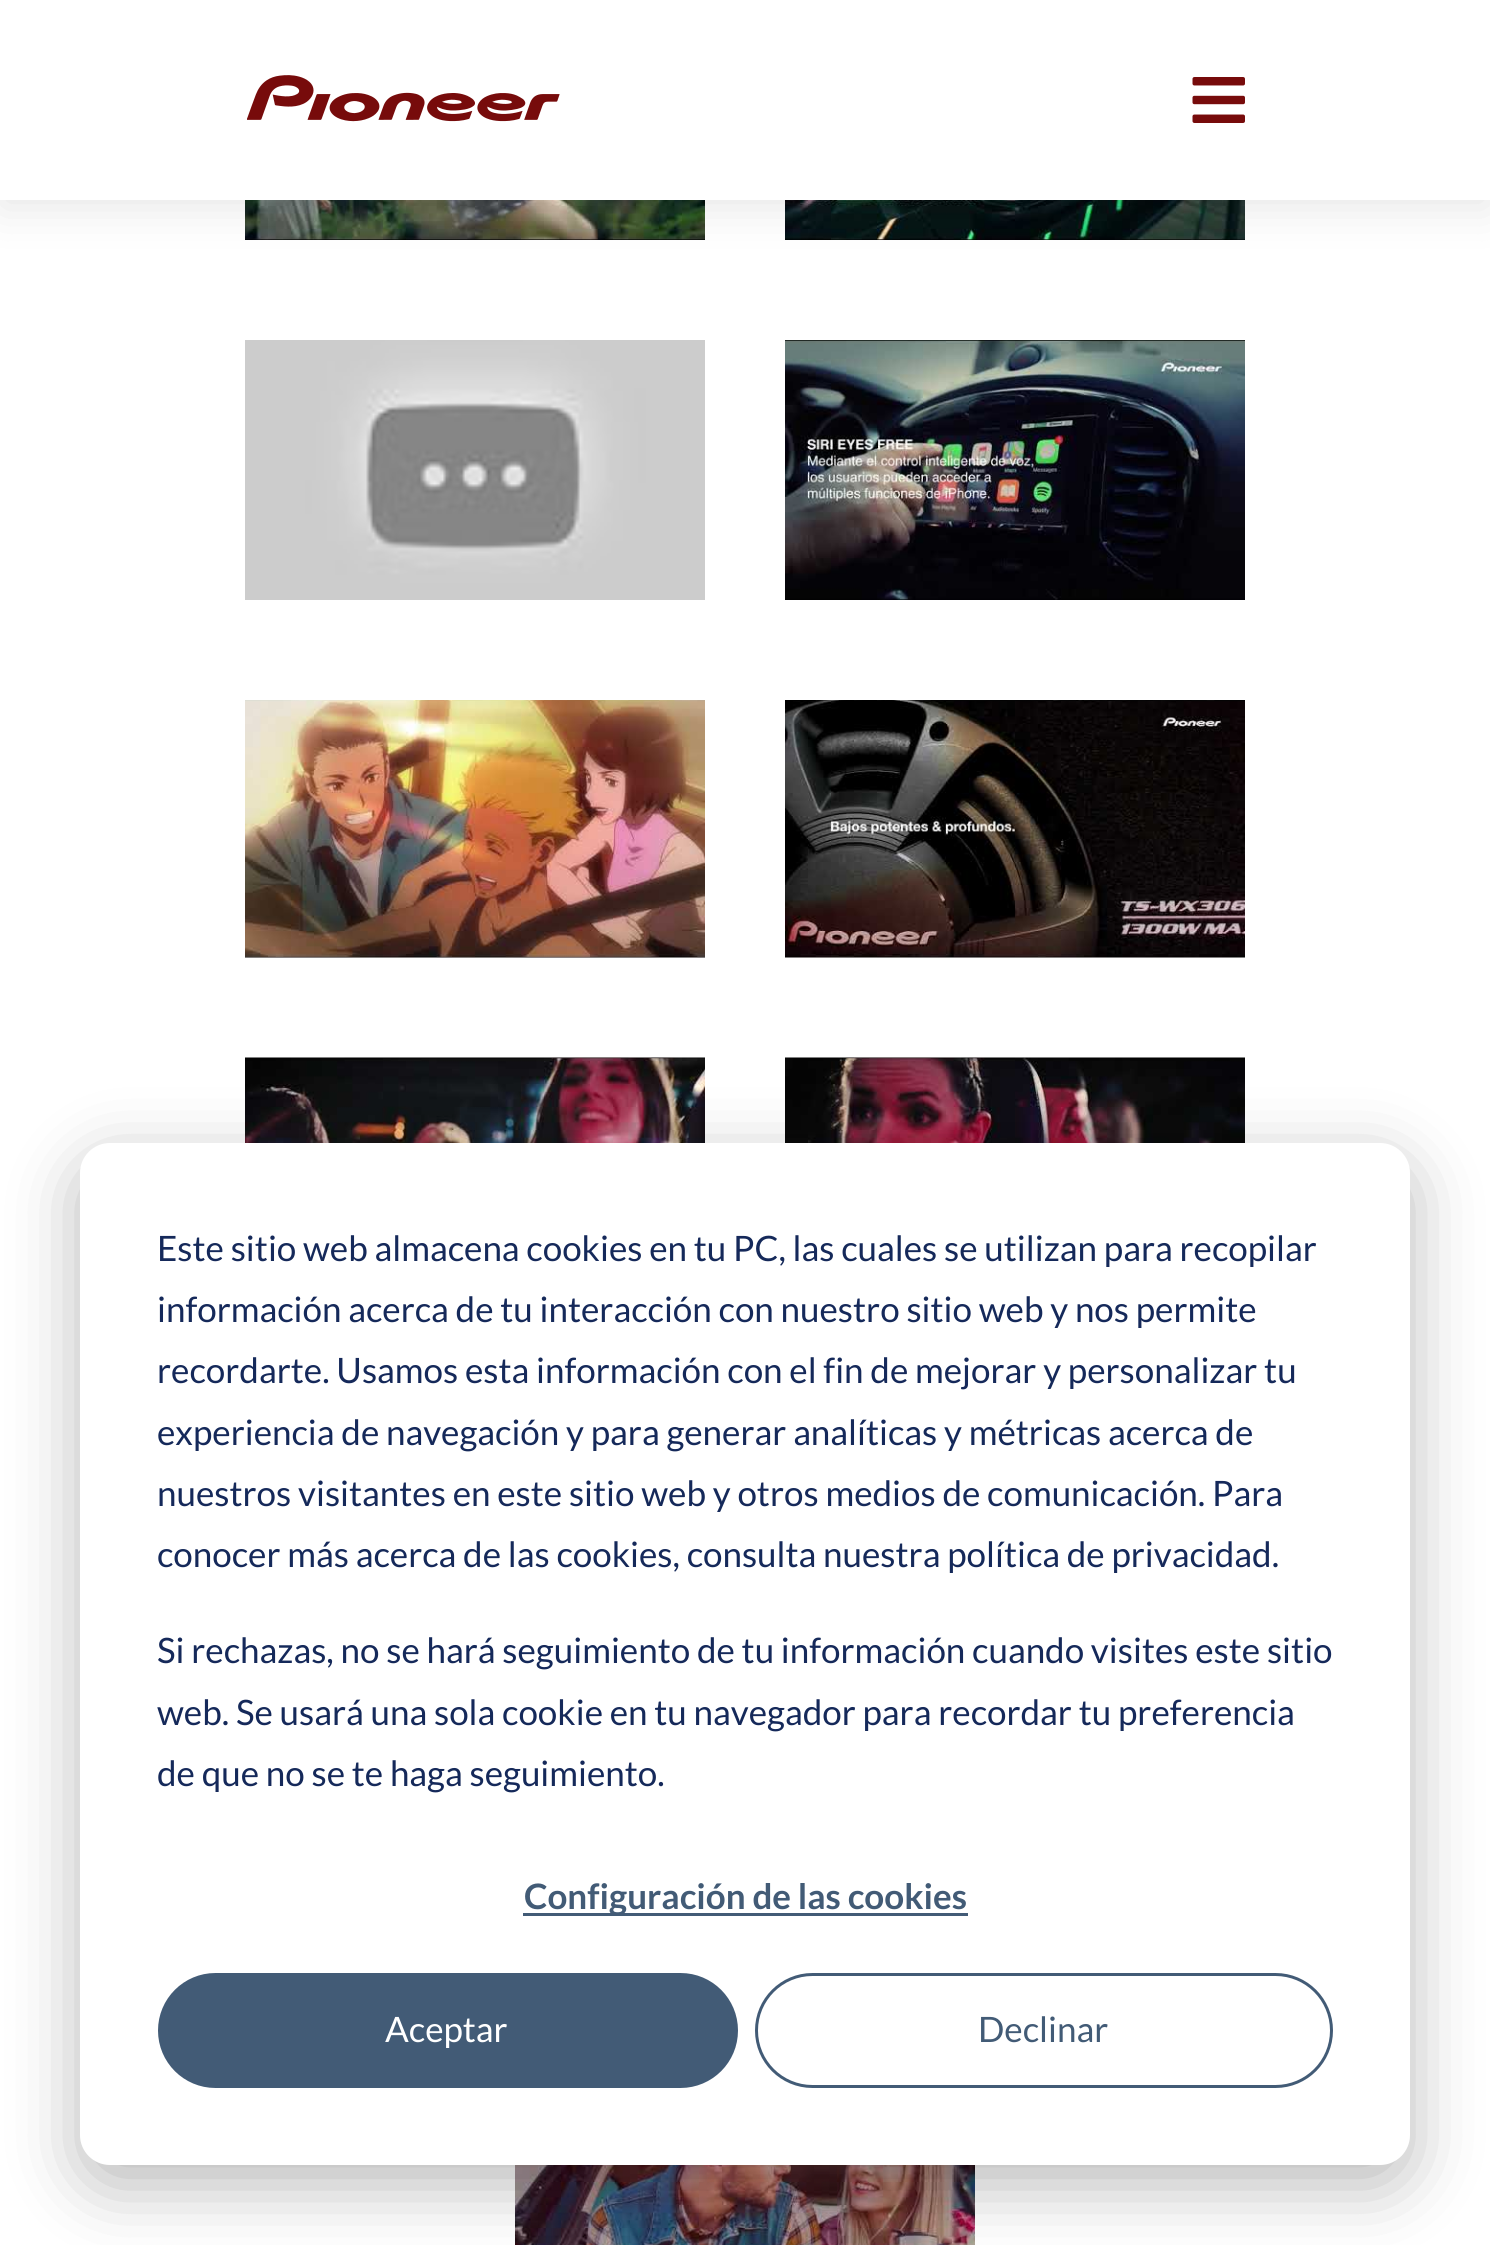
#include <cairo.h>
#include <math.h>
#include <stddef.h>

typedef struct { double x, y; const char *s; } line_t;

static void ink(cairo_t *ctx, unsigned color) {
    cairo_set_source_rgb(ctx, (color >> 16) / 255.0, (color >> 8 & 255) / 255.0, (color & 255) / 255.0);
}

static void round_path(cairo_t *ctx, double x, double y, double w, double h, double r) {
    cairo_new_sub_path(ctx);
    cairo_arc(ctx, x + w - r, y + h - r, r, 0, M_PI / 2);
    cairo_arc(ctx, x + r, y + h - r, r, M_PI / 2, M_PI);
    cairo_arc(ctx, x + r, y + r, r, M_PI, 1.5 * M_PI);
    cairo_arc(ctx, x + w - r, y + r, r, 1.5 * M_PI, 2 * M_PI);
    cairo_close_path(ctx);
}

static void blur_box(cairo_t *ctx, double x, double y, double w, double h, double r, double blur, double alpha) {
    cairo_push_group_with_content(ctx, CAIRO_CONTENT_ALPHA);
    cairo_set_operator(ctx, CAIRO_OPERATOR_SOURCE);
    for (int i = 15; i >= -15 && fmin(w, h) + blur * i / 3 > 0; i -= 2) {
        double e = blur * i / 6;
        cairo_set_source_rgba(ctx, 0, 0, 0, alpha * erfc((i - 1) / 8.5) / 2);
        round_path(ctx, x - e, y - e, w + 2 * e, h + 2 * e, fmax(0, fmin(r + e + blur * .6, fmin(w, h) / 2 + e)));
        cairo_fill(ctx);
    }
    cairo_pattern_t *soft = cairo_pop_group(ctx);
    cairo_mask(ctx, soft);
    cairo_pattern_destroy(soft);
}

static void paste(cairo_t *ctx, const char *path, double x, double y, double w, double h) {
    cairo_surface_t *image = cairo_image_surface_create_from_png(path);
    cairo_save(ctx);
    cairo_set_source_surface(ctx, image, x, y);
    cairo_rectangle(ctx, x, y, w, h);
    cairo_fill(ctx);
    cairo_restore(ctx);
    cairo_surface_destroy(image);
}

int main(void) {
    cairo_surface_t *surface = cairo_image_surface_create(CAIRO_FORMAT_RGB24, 1490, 2245);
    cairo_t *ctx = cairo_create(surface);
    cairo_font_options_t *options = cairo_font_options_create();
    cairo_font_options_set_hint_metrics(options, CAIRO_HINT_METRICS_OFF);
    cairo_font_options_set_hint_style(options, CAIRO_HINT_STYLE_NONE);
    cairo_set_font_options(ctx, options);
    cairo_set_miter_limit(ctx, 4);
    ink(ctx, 0xFFFFFF);
    cairo_paint(ctx);
    paste(ctx, "media/3.png", 245, 200, 460, 40);
    paste(ctx, "media/4.png", 785, 200, 460, 40);
    ink(ctx, 0x000000);
    blur_box(ctx, 0, 8, 1490, 200, 0, 22.5, 0.1);
    ink(ctx, 0xFFFFFF);
    cairo_rectangle(ctx, 0, 0, 1490, 200);
    cairo_fill(ctx);
    paste(ctx, "media/1.png", 247, 75, 313, 47);
    paste(ctx, "media/2.png", 1192, 77, 53, 46);
    paste(ctx, "media/5.png", 245, 340, 460, 260);
    paste(ctx, "media/6.png", 785, 340, 460, 260);
    paste(ctx, "media/7.png", 245, 700, 460, 258);
    paste(ctx, "media/8.png", 785, 700, 460, 258);
    paste(ctx, "media/9.png", 245, 1057, 460, 86);
    paste(ctx, "media/10.png", 785, 1057, 460, 86);
    paste(ctx, "media/11.png", 515, 2165, 460, 80);
    ink(ctx, 0x000000);
    blur_box(ctx, 80, 1163, 1330, 1022, 30, 35, 0.28);
    ink(ctx, 0xFFFFFF);
    round_path(ctx, 80, 1143, 1330, 1022, 30);
    cairo_fill(ctx);
    cairo_select_font_face(ctx, "Lato", CAIRO_FONT_SLANT_NORMAL, CAIRO_FONT_WEIGHT_NORMAL);
    cairo_set_font_size(ctx, 35);
    ink(ctx, 0x15295A);
    {
        static const line_t items[] = {
            {157, 1261, "Este sitio web almacena cookies en tu PC, las cuales se utilizan para recopilar"},
            {157, 1322, "información acerca de tu interacción con nuestro sitio web y nos permite"},
            {157, 1383, "recordarte. Usamos esta información con el fin de mejorar y personalizar tu"},
            {157, 1445, "experiencia de navegación y para generar analíticas y métricas acerca de"},
            {157, 1506, "nuestros visitantes en este sitio web y otros medios de comunicación. Para"},
            {157, 1567, "conocer más acerca de las cookies, consulta nuestra política de privacidad."},
            {157, 1663, "Si rechazas, no se hará seguimiento de tu información cuando visites este sitio"},
            {157, 1725, "web. Se usará una sola cookie en tu navegador para recordar tu preferencia"},
            {157, 1786, "de que no se te haga seguimiento."},
        };
        for (size_t i = 0; i < sizeof items / sizeof *items; i++) {
            cairo_move_to(ctx, items[i].x, items[i].y);
            cairo_show_text(ctx, items[i].s);
        }
    }
    ink(ctx, 0x425B76);
    cairo_rectangle(ctx, 523, 1913, 445, 3);
    cairo_fill(ctx);
    cairo_select_font_face(ctx, "Lato", CAIRO_FONT_SLANT_NORMAL, CAIRO_FONT_WEIGHT_BOLD);
    cairo_move_to(ctx, 524, 1909);
    cairo_show_text(ctx, "Configuración de las cookies");
    round_path(ctx, 159.5, 1974.5, 577, 112, 56);
    cairo_fill_preserve(ctx);
    cairo_set_line_width(ctx, 3);
    cairo_stroke(ctx);
    cairo_select_font_face(ctx, "Lato", CAIRO_FONT_SLANT_NORMAL, CAIRO_FONT_WEIGHT_NORMAL);
    ink(ctx, 0xFFFFFF);
    cairo_move_to(ctx, 385, 2042);
    cairo_show_text(ctx, "Aceptar");
    round_path(ctx, 756.5, 1974.5, 575, 112, 56);
    ink(ctx, 0x425B76);
    cairo_stroke(ctx);
    cairo_move_to(ctx, 978, 2042);
    cairo_show_text(ctx, "Declinar");
    cairo_surface_write_to_png(surface, "image.png");
    cairo_font_options_destroy(options);
    cairo_destroy(ctx);
    cairo_surface_destroy(surface);
    return 0;
}
